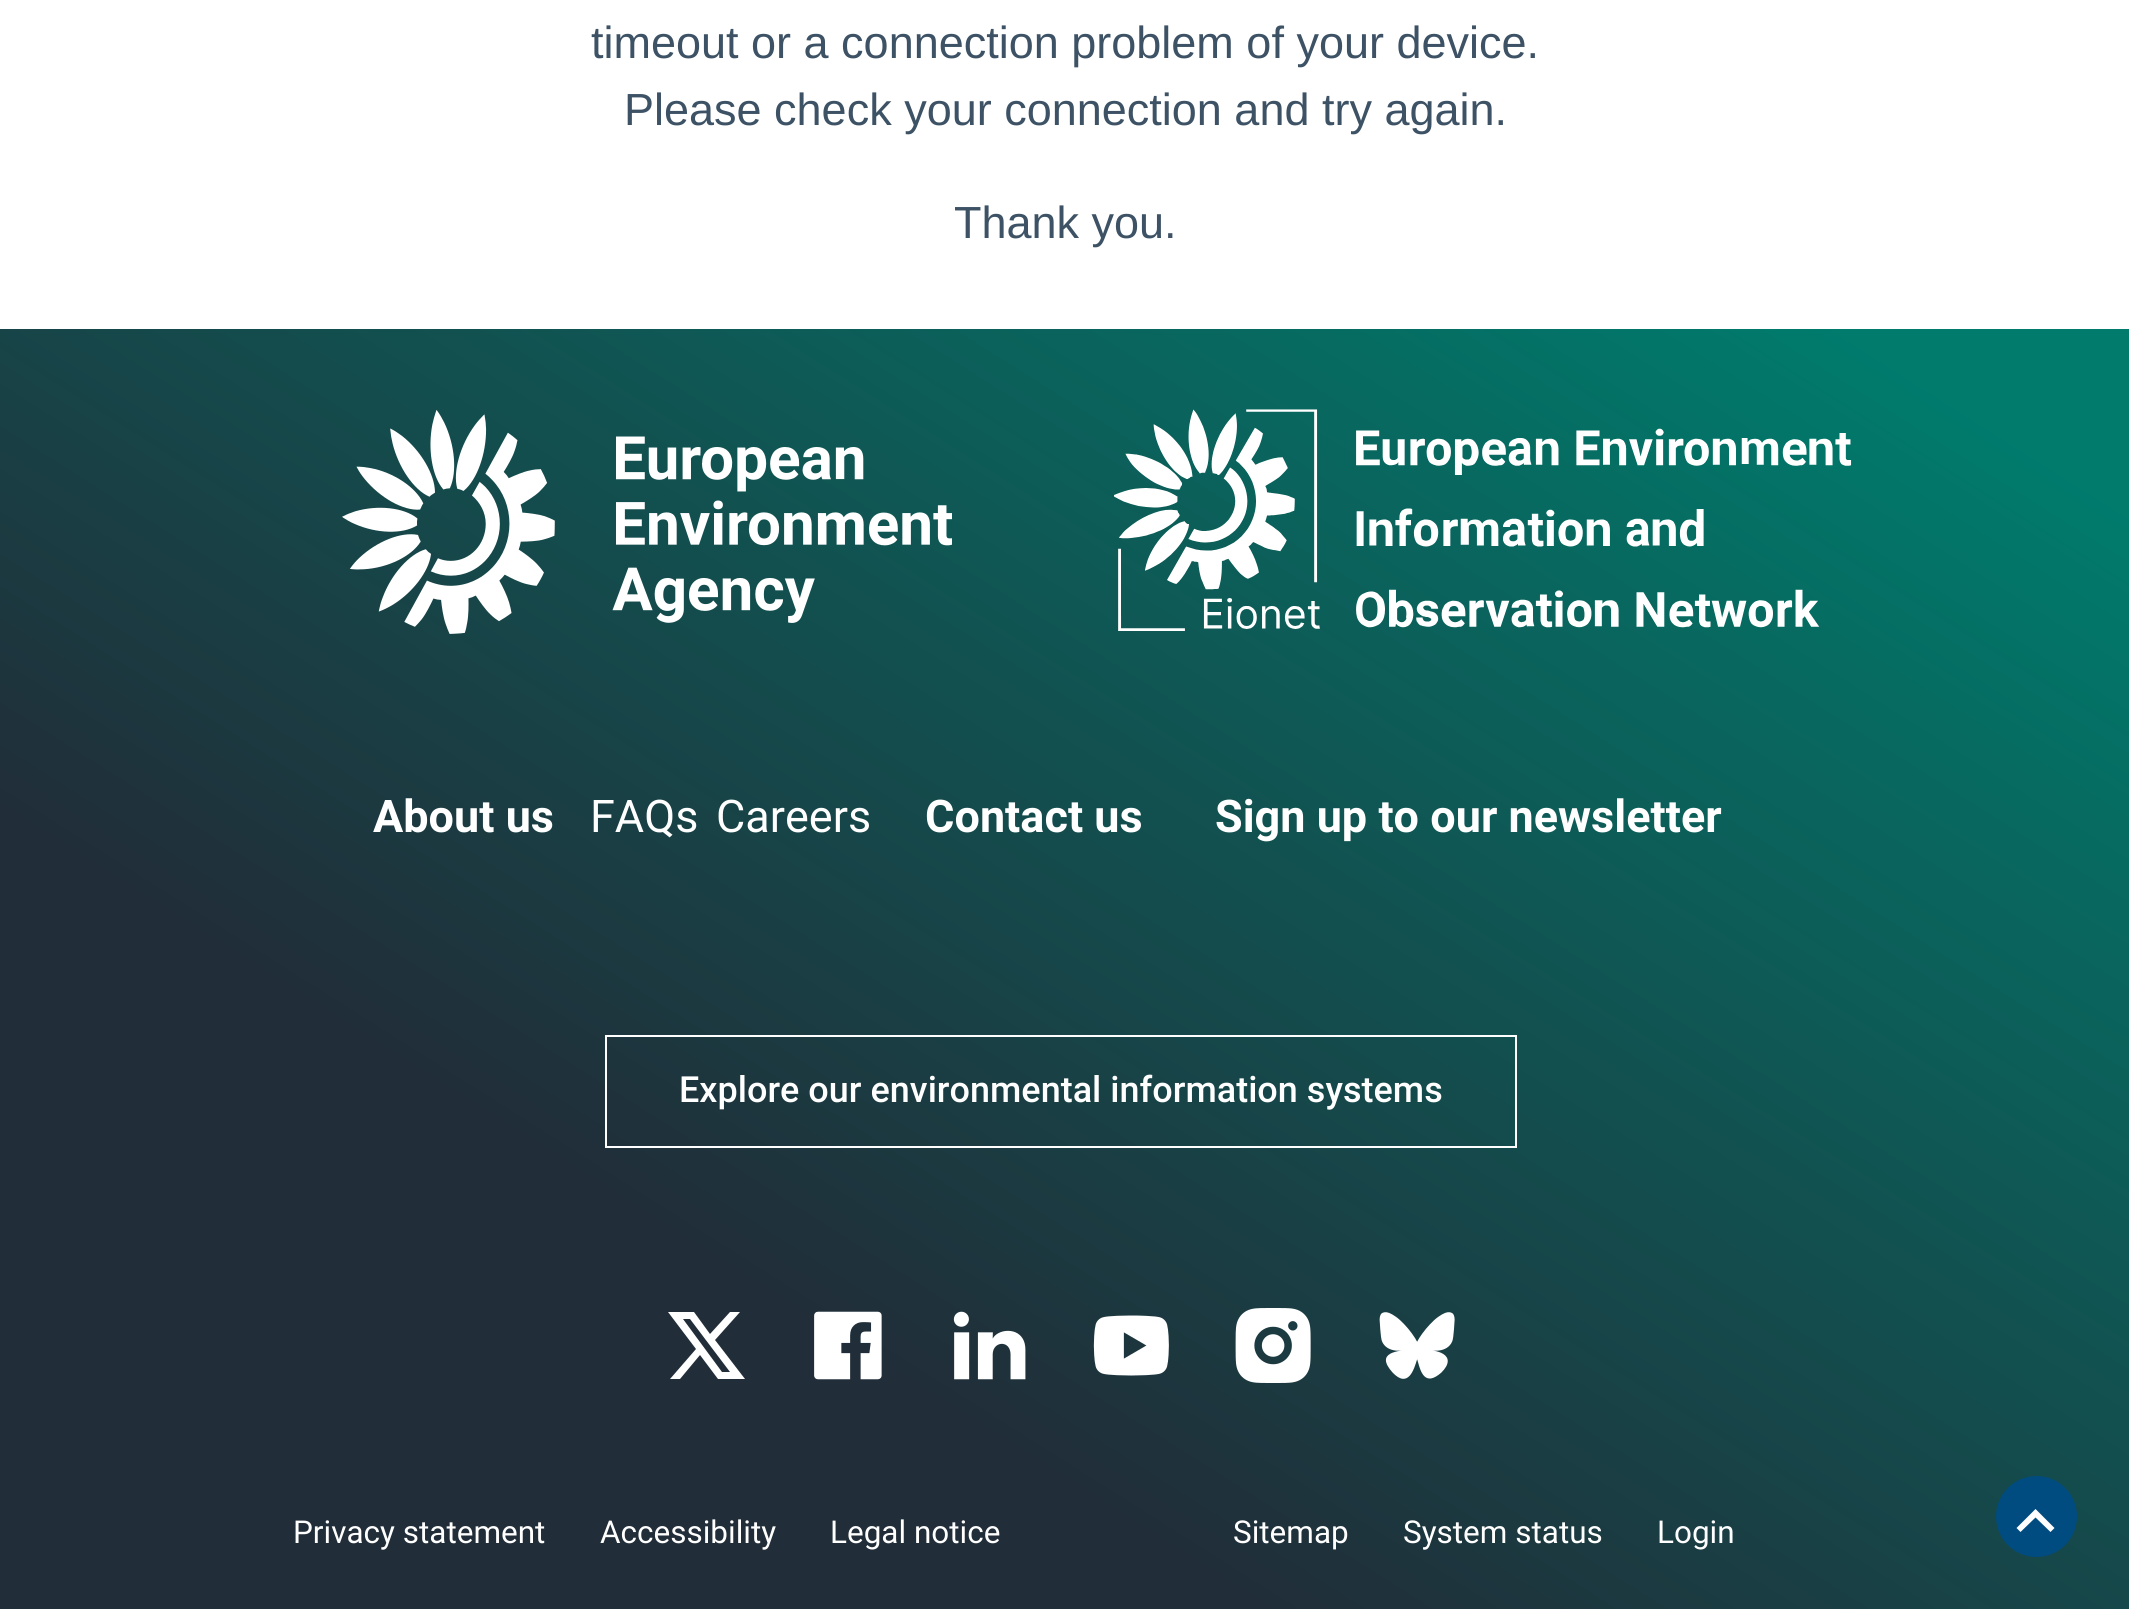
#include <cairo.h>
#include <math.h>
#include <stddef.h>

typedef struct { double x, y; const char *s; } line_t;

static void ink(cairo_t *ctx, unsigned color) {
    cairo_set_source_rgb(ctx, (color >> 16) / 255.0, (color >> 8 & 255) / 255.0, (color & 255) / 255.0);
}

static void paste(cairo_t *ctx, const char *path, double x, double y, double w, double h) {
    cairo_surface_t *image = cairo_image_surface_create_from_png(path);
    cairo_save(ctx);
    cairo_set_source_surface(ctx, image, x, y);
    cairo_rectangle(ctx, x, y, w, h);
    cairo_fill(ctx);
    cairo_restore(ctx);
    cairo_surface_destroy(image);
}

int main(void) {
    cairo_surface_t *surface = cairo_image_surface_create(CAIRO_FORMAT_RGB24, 2129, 1609);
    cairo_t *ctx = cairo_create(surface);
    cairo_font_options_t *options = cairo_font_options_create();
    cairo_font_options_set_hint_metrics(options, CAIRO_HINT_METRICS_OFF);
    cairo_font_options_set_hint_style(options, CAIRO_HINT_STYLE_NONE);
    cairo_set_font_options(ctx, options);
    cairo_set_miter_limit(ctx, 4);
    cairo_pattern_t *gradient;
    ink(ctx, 0xFFFFFF);
    cairo_paint(ctx);
    cairo_select_font_face(ctx, "Liberation Sans", CAIRO_FONT_SLANT_NORMAL, CAIRO_FONT_WEIGHT_NORMAL);
    cairo_set_font_size(ctx, 45);
    ink(ctx, 0x3D5265);
    {
        static const line_t items[] = {
            {591, 58, "timeout or a connection problem of your device."},
            {624, 125, "Please check your connection and try again."},
            {954, 238, "Thank you."},
        };
        for (size_t i = 0; i < sizeof items / sizeof *items; i++) {
            cairo_move_to(ctx, items[i].x, items[i].y);
            cairo_show_text(ctx, items[i].s);
        }
    }
    gradient = cairo_pattern_create_linear(1660, 30, 471, 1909);
    cairo_pattern_add_color_stop_rgba(gradient, 0.07, 0, 0.482, 0.424, 1);
    cairo_pattern_add_color_stop_rgba(gradient, 0.7, 0.129, 0.176, 0.22, 1);
    cairo_pattern_add_color_stop_rgba(gradient, 0.98, 0.129, 0.176, 0.22, 1);
    cairo_set_source(ctx, gradient);
    cairo_pattern_destroy(gradient);
    cairo_rectangle(ctx, 0, 329, 2129, 1280);
    cairo_fill(ctx);
    paste(ctx, "media/1.png", 342, 410, 610, 224);
    paste(ctx, "media/2.png", 1114, 409, 738, 222);
    cairo_select_font_face(ctx, "Roboto", CAIRO_FONT_SLANT_NORMAL, CAIRO_FONT_WEIGHT_BOLD);
    ink(ctx, 0xFFFFFF);
    cairo_move_to(ctx, 373, 832);
    cairo_show_text(ctx, "About us");
    cairo_select_font_face(ctx, "Roboto", CAIRO_FONT_SLANT_NORMAL, CAIRO_FONT_WEIGHT_NORMAL);
    cairo_move_to(ctx, 590, 832);
    cairo_show_text(ctx, "FAQs");
    cairo_move_to(ctx, 716, 832);
    cairo_show_text(ctx, "Careers");
    cairo_select_font_face(ctx, "Roboto", CAIRO_FONT_SLANT_NORMAL, CAIRO_FONT_WEIGHT_BOLD);
    cairo_move_to(ctx, 925, 832);
    cairo_show_text(ctx, "Contact us");
    cairo_move_to(ctx, 1215, 832);
    cairo_show_text(ctx, "Sign up to our newsletter");
    cairo_rectangle(ctx, 606, 1036, 910, 111);
    cairo_stroke(ctx);
    cairo_select_font_face(ctx, "Roboto Medium", CAIRO_FONT_SLANT_NORMAL, CAIRO_FONT_WEIGHT_NORMAL);
    cairo_set_font_size(ctx, 36);
    cairo_move_to(ctx, 679, 1102);
    cairo_show_text(ctx, "Explore our environmental information systems");
    cairo_new_path(ctx);
    cairo_move_to(ctx, 700, 1355);
    cairo_line_to(ctx, 718, 1379);
    cairo_line_to(ctx, 745, 1379);
    cairo_line_to(ctx, 715, 1340);
    cairo_line_to(ctx, 740, 1312);
    cairo_line_to(ctx, 730, 1312);
    cairo_line_to(ctx, 710, 1334);
    cairo_line_to(ctx, 694, 1312);
    cairo_line_to(ctx, 668, 1312);
    cairo_line_to(ctx, 696, 1349);
    cairo_line_to(ctx, 670, 1379);
    cairo_line_to(ctx, 680, 1379);
    cairo_close_path(ctx);
    cairo_move_to(ctx, 722, 1372);
    cairo_line_to(ctx, 683, 1319);
    cairo_line_to(ctx, 690, 1319);
    cairo_line_to(ctx, 730, 1372);
    cairo_close_path(ctx);
    cairo_fill(ctx);
    paste(ctx, "media/3.png", 814, 1311, 68, 69);
    paste(ctx, "media/4.png", 953, 1311, 73, 69);
    paste(ctx, "media/5.png", 1093, 1315, 76, 61);
    paste(ctx, "media/6.png", 1235, 1308, 76, 75);
    paste(ctx, "media/7.png", 1379, 1312, 76, 67);
    cairo_select_font_face(ctx, "Roboto", CAIRO_FONT_SLANT_NORMAL, CAIRO_FONT_WEIGHT_NORMAL);
    cairo_set_font_size(ctx, 31.5);
    {
        static const line_t items[] = {
            {293, 1543, "Privacy statement"},
            {600, 1543, "Accessibility"},
            {830, 1543, "Legal notice"},
            {1233, 1543, "Sitemap"},
            {1403, 1543, "System status"},
            {1657, 1543, "Login"},
        };
        for (size_t i = 0; i < sizeof items / sizeof *items; i++) {
            cairo_move_to(ctx, items[i].x, items[i].y);
            cairo_show_text(ctx, items[i].s);
        }
    }
    ink(ctx, 0x004B7F);
    cairo_new_path(ctx);
    cairo_arc(ctx, 2036.5, 1516.5, 40.5, 0, 2 * M_PI);
    cairo_fill(ctx);
    ink(ctx, 0xFFFFFF);
    cairo_new_path(ctx);
    cairo_move_to(ctx, 2035.5, 1517.5);
    cairo_line_to(ctx, 2020.5, 1532);
    cairo_line_to(ctx, 2016.5, 1528);
    cairo_line_to(ctx, 2035.5, 1509);
    cairo_line_to(ctx, 2054.5, 1528);
    cairo_line_to(ctx, 2050.5, 1532);
    cairo_close_path(ctx);
    cairo_fill(ctx);
    cairo_surface_write_to_png(surface, "image.png");
    cairo_font_options_destroy(options);
    cairo_destroy(ctx);
    cairo_surface_destroy(surface);
    return 0;
}
